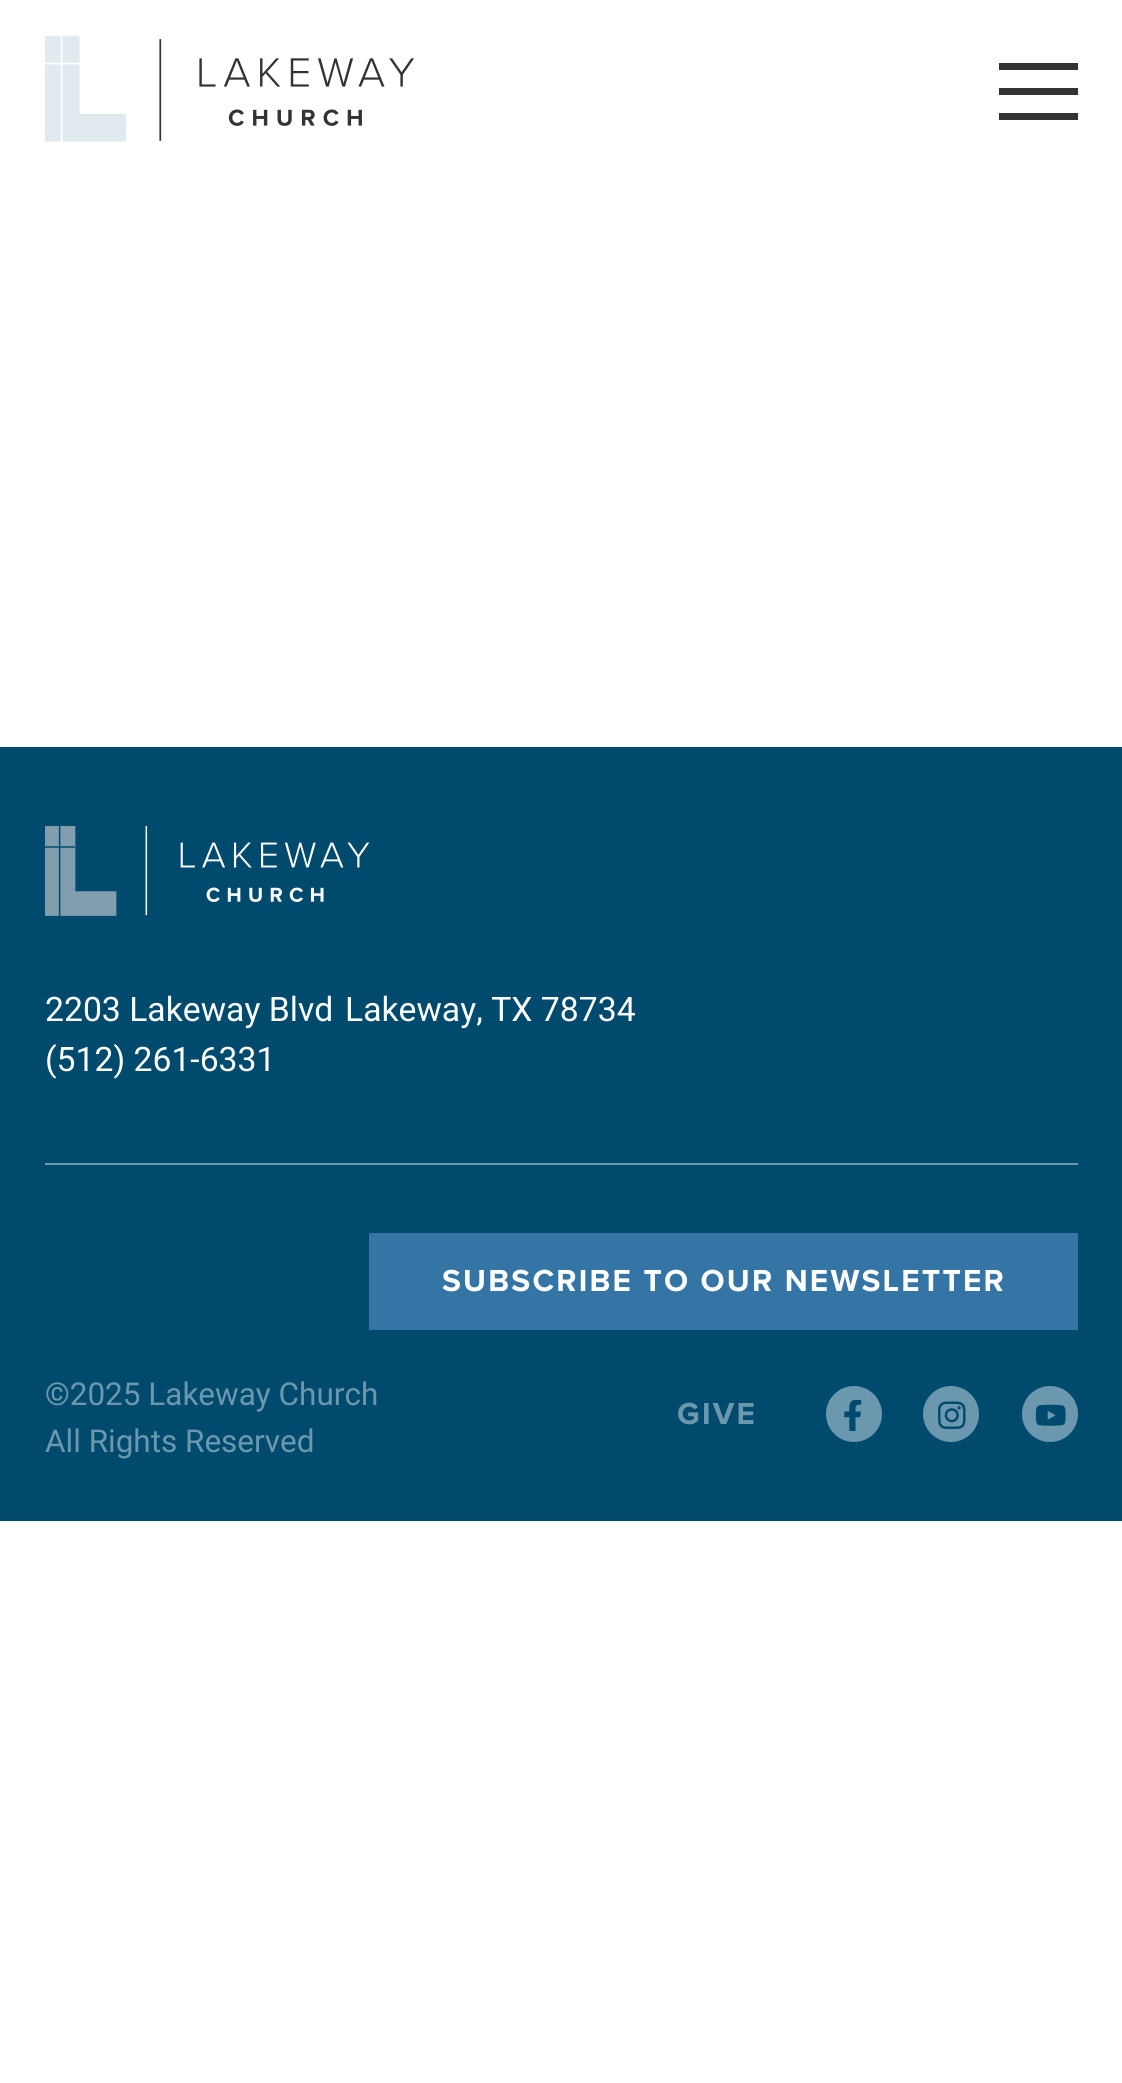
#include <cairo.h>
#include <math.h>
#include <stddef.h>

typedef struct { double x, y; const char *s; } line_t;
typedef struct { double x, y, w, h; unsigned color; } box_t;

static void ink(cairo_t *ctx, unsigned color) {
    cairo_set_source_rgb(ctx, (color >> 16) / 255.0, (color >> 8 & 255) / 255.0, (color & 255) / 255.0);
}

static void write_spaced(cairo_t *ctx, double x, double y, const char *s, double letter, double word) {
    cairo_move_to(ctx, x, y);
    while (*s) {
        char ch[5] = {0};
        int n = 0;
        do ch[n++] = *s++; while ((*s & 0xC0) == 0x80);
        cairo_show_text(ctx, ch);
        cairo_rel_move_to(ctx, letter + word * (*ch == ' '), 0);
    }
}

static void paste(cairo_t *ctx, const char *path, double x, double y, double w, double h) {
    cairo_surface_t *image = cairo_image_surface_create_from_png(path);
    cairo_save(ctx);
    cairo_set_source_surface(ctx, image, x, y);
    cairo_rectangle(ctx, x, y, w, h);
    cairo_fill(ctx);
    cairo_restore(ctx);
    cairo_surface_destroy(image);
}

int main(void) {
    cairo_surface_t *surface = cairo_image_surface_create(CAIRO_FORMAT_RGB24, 1122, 2083);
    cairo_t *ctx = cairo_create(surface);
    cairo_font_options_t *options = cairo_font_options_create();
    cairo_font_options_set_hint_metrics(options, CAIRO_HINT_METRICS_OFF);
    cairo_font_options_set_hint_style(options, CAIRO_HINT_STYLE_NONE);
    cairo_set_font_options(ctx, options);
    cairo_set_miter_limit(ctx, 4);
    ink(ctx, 0xFFFFFF);
    cairo_paint(ctx);
    paste(ctx, "media/1.png", 45, 35, 369, 107);
    {
        static const box_t items[] = {
            {999, 63, 79, 7, 0x333333},
            {999, 88, 79, 7, 0x333333},
            {999, 113, 79, 7, 0x333333},
            {0, 747, 1122, 774, 0x004A6D},
        };
        for (size_t i = 0; i < sizeof items / sizeof *items; i++) {
            ink(ctx, items[i].color);
            cairo_rectangle(ctx, items[i].x, items[i].y, items[i].w, items[i].h);
            cairo_fill(ctx);
        }
    }
    paste(ctx, "media/2.png", 45, 826, 325, 90);
    cairo_select_font_face(ctx, "Roboto", CAIRO_FONT_SLANT_NORMAL, CAIRO_FONT_WEIGHT_NORMAL);
    cairo_set_font_size(ctx, 33.75);
    ink(ctx, 0xFFFFFF);
    {
        static const line_t items[] = {
            {45, 1021, "2203 Lakeway Blvd"},
            {345, 1021, "Lakeway, TX 78734"},
            {45, 1071, "(512) 261-6331"},
        };
        for (size_t i = 0; i < sizeof items / sizeof *items; i++) {
            cairo_move_to(ctx, items[i].x, items[i].y);
            cairo_show_text(ctx, items[i].s);
        }
    }
    cairo_set_font_size(ctx, 31.5);
    ink(ctx, 0x6B98AF);
    cairo_move_to(ctx, 45, 1405);
    cairo_show_text(ctx, "©2025 Lakeway Church");
    cairo_move_to(ctx, 45, 1452);
    cairo_show_text(ctx, "All Rights Reserved");
    cairo_rectangle(ctx, 45, 1163, 1033, 2);
    cairo_fill(ctx);
    ink(ctx, 0x3575A6);
    cairo_rectangle(ctx, 369, 1233, 709, 97);
    cairo_fill(ctx);
    cairo_select_font_face(ctx, "Proxima Nova", CAIRO_FONT_SLANT_NORMAL, CAIRO_FONT_WEIGHT_BOLD);
    ink(ctx, 0xFFFFFF);
    write_spaced(ctx, 442, 1291, "SUBSCRIBE TO OUR NEWSLETTER", 2.2, 0);
    ink(ctx, 0x6B98AF);
    write_spaced(ctx, 677, 1424, "GIVE", 2.2, 0);
    cairo_new_path(ctx);
    cairo_arc(ctx, 854, 1414, 28, 0, 2 * M_PI);
    cairo_fill(ctx);
    paste(ctx, "media/3.png", 844, 1400, 18, 31);
    cairo_arc(ctx, 951, 1414, 28, 0, 2 * M_PI);
    cairo_fill(ctx);
    paste(ctx, "media/4.png", 938, 1401, 28, 28);
    cairo_arc(ctx, 1050, 1414, 28, 0, 2 * M_PI);
    cairo_fill(ctx);
    paste(ctx, "media/5.png", 1035, 1404, 31, 22);
    cairo_surface_write_to_png(surface, "image.png");
    cairo_font_options_destroy(options);
    cairo_destroy(ctx);
    cairo_surface_destroy(surface);
    return 0;
}
